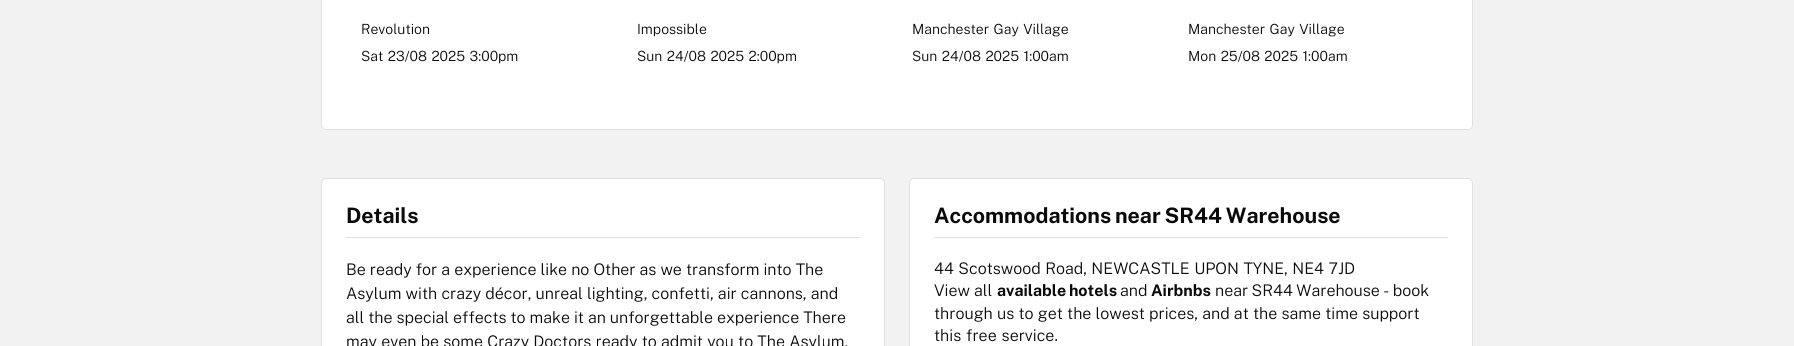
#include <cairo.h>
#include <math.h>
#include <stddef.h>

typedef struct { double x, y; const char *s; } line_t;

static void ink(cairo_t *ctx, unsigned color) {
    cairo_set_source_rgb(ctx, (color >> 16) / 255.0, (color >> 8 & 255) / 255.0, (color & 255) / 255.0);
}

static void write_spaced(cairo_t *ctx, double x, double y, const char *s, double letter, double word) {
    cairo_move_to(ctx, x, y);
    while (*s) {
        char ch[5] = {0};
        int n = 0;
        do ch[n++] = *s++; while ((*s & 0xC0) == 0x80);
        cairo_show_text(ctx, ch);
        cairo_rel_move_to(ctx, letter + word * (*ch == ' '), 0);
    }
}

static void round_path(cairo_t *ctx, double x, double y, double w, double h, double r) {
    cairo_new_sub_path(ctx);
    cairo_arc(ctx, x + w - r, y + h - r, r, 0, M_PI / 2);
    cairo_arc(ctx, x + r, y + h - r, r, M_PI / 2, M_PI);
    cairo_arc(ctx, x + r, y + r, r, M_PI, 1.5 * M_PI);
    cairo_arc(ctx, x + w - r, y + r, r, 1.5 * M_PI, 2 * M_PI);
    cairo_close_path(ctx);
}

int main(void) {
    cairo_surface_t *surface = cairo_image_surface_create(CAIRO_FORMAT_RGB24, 1794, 346);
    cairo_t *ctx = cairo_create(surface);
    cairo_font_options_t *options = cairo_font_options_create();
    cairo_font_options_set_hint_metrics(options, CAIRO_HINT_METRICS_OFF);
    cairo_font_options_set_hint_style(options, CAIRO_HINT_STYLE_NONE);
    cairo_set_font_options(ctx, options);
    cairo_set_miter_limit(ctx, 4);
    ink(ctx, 0xF2F2F2);
    cairo_paint(ctx);
    ink(ctx, 0xFFFFFF);
    round_path(ctx, 321.5, -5.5, 1151, 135, 4.5);
    cairo_fill_preserve(ctx);
    ink(ctx, 0xE0E0E0);
    cairo_set_line_width(ctx, 1);
    cairo_stroke(ctx);
    cairo_select_font_face(ctx, "Public Sans Light", CAIRO_FONT_SLANT_NORMAL, CAIRO_FONT_WEIGHT_NORMAL);
    cairo_set_font_size(ctx, 14);
    ink(ctx, 0x0A0A0A);
    cairo_move_to(ctx, 361, 34);
    cairo_show_text(ctx, "Revolution");
    write_spaced(ctx, 361, 61, "Sat 23/08 2025 3:00pm", 0, 1);
    cairo_move_to(ctx, 637, 34);
    cairo_show_text(ctx, "Impossible");
    {
        static const line_t items[] = {
            {637, 61, "Sun 24/08 2025 2:00pm"},
            {912, 34, "Manchester Gay Village"},
            {912, 61, "Sun 24/08 2025 1:00am"},
            {1188, 34, "Manchester Gay Village"},
            {1188, 61, "Mon 25/08 2025 1:00am"},
        };
        for (size_t i = 0; i < sizeof items / sizeof *items; i++) {
            write_spaced(ctx, items[i].x, items[i].y, items[i].s, 0, 1);
        }
    }
    ink(ctx, 0xFFFFFF);
    round_path(ctx, 321.5, 178.5, 563, 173, 4.5);
    cairo_fill_preserve(ctx);
    ink(ctx, 0xE0E0E0);
    cairo_stroke(ctx);
    cairo_rectangle(ctx, 346, 237, 514, 1);
    cairo_fill(ctx);
    cairo_select_font_face(ctx, "Public Sans", CAIRO_FONT_SLANT_NORMAL, CAIRO_FONT_WEIGHT_BOLD);
    cairo_set_font_size(ctx, 21.3);
    ink(ctx, 0x0A0A0A);
    cairo_move_to(ctx, 346, 223);
    cairo_show_text(ctx, "Details");
    cairo_select_font_face(ctx, "Public Sans Light", CAIRO_FONT_SLANT_NORMAL, CAIRO_FONT_WEIGHT_NORMAL);
    cairo_set_font_size(ctx, 16);
    write_spaced(ctx, 346, 275, "Be ready for a experience like no Other as we transform into The", 0, 0.1);
    write_spaced(ctx, 346, 299, "Asylum with crazy décor, unreal lighting, confetti, air cannons, and", 0, 0.25);
    cairo_move_to(ctx, 346, 323);
    cairo_show_text(ctx, "all the special effects to make it an unforgettable experience There");
    write_spaced(ctx, 346, 347, "may even be some Crazy Doctors ready to admit you to The Asylum,", 0, 0.25);
    ink(ctx, 0xFFFFFF);
    round_path(ctx, 909.5, 178.5, 563, 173, 4.5);
    cairo_fill_preserve(ctx);
    ink(ctx, 0xE0E0E0);
    cairo_stroke(ctx);
    cairo_rectangle(ctx, 934, 237, 514, 1);
    cairo_fill(ctx);
    cairo_select_font_face(ctx, "Public Sans", CAIRO_FONT_SLANT_NORMAL, CAIRO_FONT_WEIGHT_BOLD);
    cairo_set_font_size(ctx, 21.3);
    ink(ctx, 0x0A0A0A);
    write_spaced(ctx, 934, 223, "Accommodations near SR44 Warehouse", 0, -1);
    cairo_select_font_face(ctx, "Public Sans Light", CAIRO_FONT_SLANT_NORMAL, CAIRO_FONT_WEIGHT_NORMAL);
    cairo_set_font_size(ctx, 16);
    write_spaced(ctx, 934, 274, "44 Scotswood Road, NEWCASTLE UPON TYNE, NE4 7JD", 0, 0.5);
    cairo_move_to(ctx, 934, 296);
    cairo_show_text(ctx, "View all");
    cairo_select_font_face(ctx, "Public Sans", CAIRO_FONT_SLANT_NORMAL, CAIRO_FONT_WEIGHT_BOLD);
    write_spaced(ctx, 997, 296, "available hotels", 0, -1);
    cairo_select_font_face(ctx, "Public Sans Light", CAIRO_FONT_SLANT_NORMAL, CAIRO_FONT_WEIGHT_NORMAL);
    cairo_move_to(ctx, 1120, 296);
    cairo_show_text(ctx, "and");
    cairo_select_font_face(ctx, "Public Sans", CAIRO_FONT_SLANT_NORMAL, CAIRO_FONT_WEIGHT_BOLD);
    cairo_move_to(ctx, 1151, 296);
    cairo_show_text(ctx, "Airbnbs");
    cairo_select_font_face(ctx, "Public Sans Light", CAIRO_FONT_SLANT_NORMAL, CAIRO_FONT_WEIGHT_NORMAL);
    write_spaced(ctx, 1215, 296, "near SR44 Warehouse - book", 0, -0.5);
    write_spaced(ctx, 934, 319, "through us to get the lowest prices, and at the same time support", 0, 0.25);
    write_spaced(ctx, 934, 341, "this free service.", 0, 1);
    cairo_surface_write_to_png(surface, "image.png");
    cairo_font_options_destroy(options);
    cairo_destroy(ctx);
    cairo_surface_destroy(surface);
    return 0;
}
